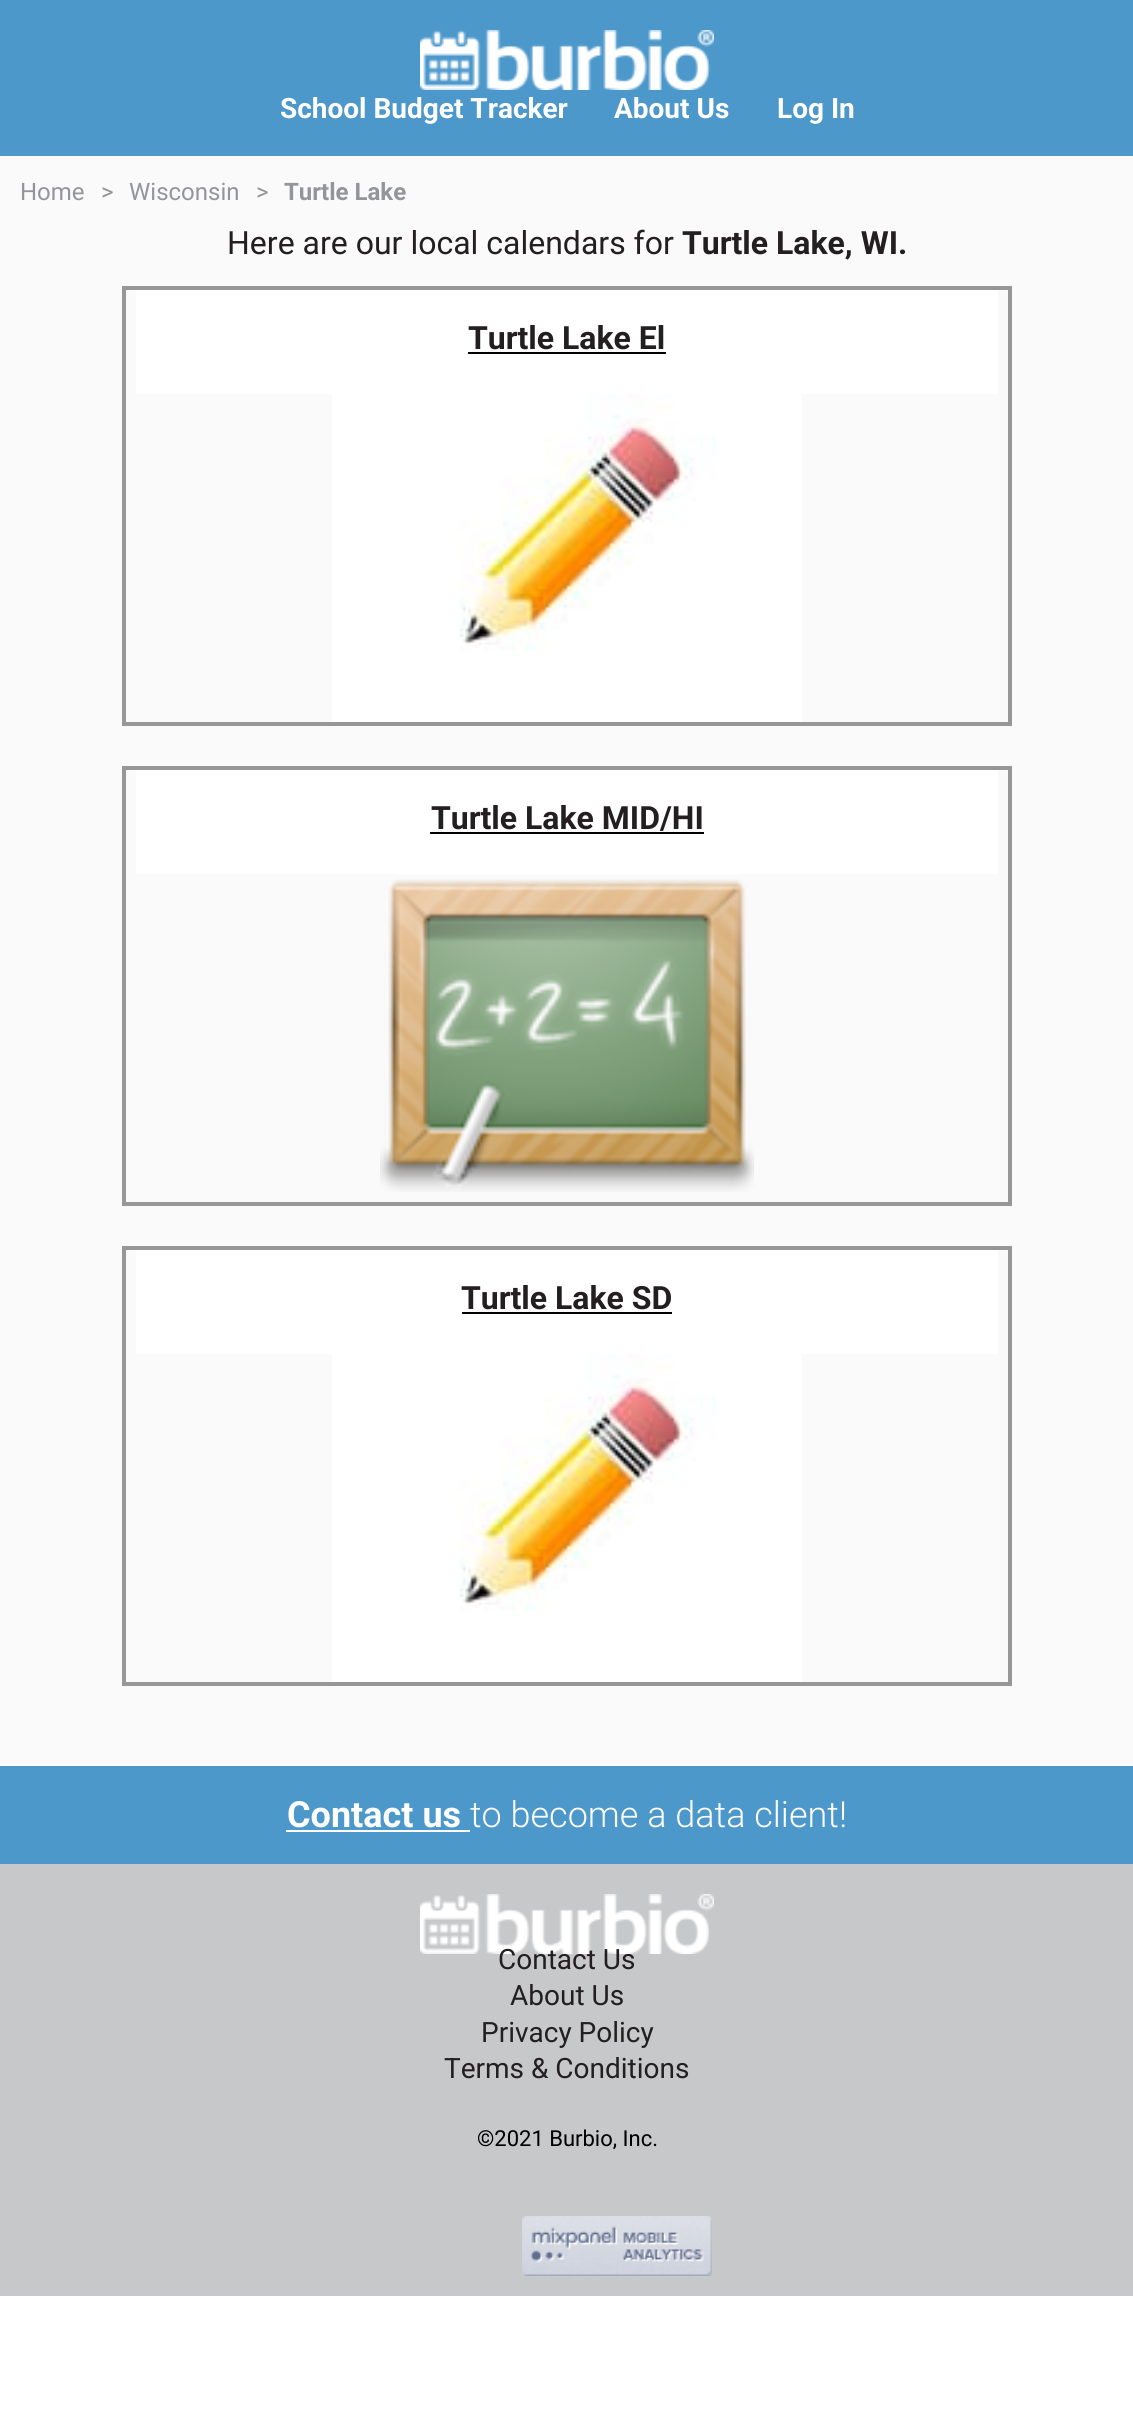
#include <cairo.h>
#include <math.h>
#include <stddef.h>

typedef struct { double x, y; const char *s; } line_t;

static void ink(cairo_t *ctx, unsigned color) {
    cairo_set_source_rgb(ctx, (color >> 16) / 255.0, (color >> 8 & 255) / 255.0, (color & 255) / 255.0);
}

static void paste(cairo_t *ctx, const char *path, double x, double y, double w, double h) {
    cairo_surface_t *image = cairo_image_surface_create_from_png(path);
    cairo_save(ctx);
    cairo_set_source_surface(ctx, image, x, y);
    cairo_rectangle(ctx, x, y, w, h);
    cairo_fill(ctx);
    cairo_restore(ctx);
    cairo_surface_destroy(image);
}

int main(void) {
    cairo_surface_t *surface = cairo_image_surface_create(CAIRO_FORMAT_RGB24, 1133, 2423);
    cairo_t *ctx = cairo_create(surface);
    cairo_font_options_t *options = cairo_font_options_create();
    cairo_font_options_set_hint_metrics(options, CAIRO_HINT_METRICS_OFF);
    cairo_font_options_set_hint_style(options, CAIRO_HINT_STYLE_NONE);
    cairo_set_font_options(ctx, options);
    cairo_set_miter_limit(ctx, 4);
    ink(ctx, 0xFFFFFF);
    cairo_paint(ctx);
    ink(ctx, 0x4D98CB);
    cairo_rectangle(ctx, 0, 0, 1133, 156);
    cairo_fill(ctx);
    paste(ctx, "media/1.png", 420, 30, 294, 60);
    cairo_select_font_face(ctx, "Roboto", CAIRO_FONT_SLANT_NORMAL, CAIRO_FONT_WEIGHT_BOLD);
    cairo_set_font_size(ctx, 28);
    ink(ctx, 0xFFFFFF);
    {
        static const line_t items[] = {
            {280, 118, "School Budget Tracker"},
            {614, 118, "About Us"},
            {777, 118, "Log In"},
        };
        for (size_t i = 0; i < sizeof items / sizeof *items; i++) {
            cairo_move_to(ctx, items[i].x, items[i].y);
            cairo_show_text(ctx, items[i].s);
        }
    }
    ink(ctx, 0xFAFAFA);
    cairo_rectangle(ctx, 0, 156, 1133, 1610);
    cairo_fill(ctx);
    cairo_select_font_face(ctx, "Roboto", CAIRO_FONT_SLANT_NORMAL, CAIRO_FONT_WEIGHT_NORMAL);
    cairo_set_font_size(ctx, 24);
    ink(ctx, 0x939598);
    {
        static const line_t items[] = {
            {20, 200, "Home"},
            {101, 200, ">"},
            {129, 200, "Wisconsin"},
            {256, 200, ">"},
        };
        for (size_t i = 0; i < sizeof items / sizeof *items; i++) {
            cairo_move_to(ctx, items[i].x, items[i].y);
            cairo_show_text(ctx, items[i].s);
        }
    }
    cairo_select_font_face(ctx, "Roboto", CAIRO_FONT_SLANT_NORMAL, CAIRO_FONT_WEIGHT_BOLD);
    cairo_move_to(ctx, 284, 200);
    cairo_show_text(ctx, "Turtle Lake");
    cairo_select_font_face(ctx, "Roboto", CAIRO_FONT_SLANT_NORMAL, CAIRO_FONT_WEIGHT_NORMAL);
    cairo_set_font_size(ctx, 32);
    ink(ctx, 0x231F20);
    cairo_move_to(ctx, 227, 254);
    cairo_show_text(ctx, "Here are our local calendars for");
    cairo_select_font_face(ctx, "Roboto", CAIRO_FONT_SLANT_NORMAL, CAIRO_FONT_WEIGHT_BOLD);
    cairo_move_to(ctx, 682, 254);
    cairo_show_text(ctx, "Turtle Lake, WI.");
    cairo_rectangle(ctx, 124, 288, 886, 436);
    ink(ctx, 0x979797);
    cairo_set_line_width(ctx, 4);
    cairo_stroke(ctx);
    ink(ctx, 0xFFFFFF);
    cairo_rectangle(ctx, 136, 290, 862, 104);
    cairo_fill(ctx);
    ink(ctx, 0x231F20);
    cairo_move_to(ctx, 468, 349);
    cairo_show_text(ctx, "Turtle Lake El");
    ink(ctx, 0x000000);
    cairo_rectangle(ctx, 468, 352, 198, 2);
    cairo_fill(ctx);
    paste(ctx, "media/2.png", 332, 394, 470, 328);
    cairo_rectangle(ctx, 124, 768, 886, 436);
    ink(ctx, 0x979797);
    cairo_stroke(ctx);
    ink(ctx, 0xFFFFFF);
    cairo_rectangle(ctx, 136, 770, 862, 104);
    cairo_fill(ctx);
    ink(ctx, 0x231F20);
    cairo_move_to(ctx, 431, 829);
    cairo_show_text(ctx, "Turtle Lake MID/HI");
    ink(ctx, 0x000000);
    cairo_rectangle(ctx, 430, 832, 274, 2);
    cairo_fill(ctx);
    paste(ctx, "media/3.png", 380, 879, 374, 313);
    cairo_rectangle(ctx, 124, 1248, 886, 436);
    ink(ctx, 0x979797);
    cairo_stroke(ctx);
    ink(ctx, 0xFFFFFF);
    cairo_rectangle(ctx, 136, 1250, 862, 104);
    cairo_fill(ctx);
    ink(ctx, 0x231F20);
    cairo_move_to(ctx, 461, 1309);
    cairo_show_text(ctx, "Turtle Lake SD");
    ink(ctx, 0x000000);
    cairo_rectangle(ctx, 462, 1312, 210, 2);
    cairo_fill(ctx);
    paste(ctx, "media/2.png", 332, 1354, 470, 328);
    ink(ctx, 0x4D98CB);
    cairo_rectangle(ctx, 0, 1766, 1133, 98);
    cairo_fill(ctx);
    cairo_set_font_size(ctx, 36);
    ink(ctx, 0xFFFFFF);
    cairo_move_to(ctx, 287, 1827);
    cairo_show_text(ctx, "Contact us");
    cairo_rectangle(ctx, 286, 1830, 184, 2);
    cairo_fill(ctx);
    cairo_select_font_face(ctx, "Roboto Light", CAIRO_FONT_SLANT_NORMAL, CAIRO_FONT_WEIGHT_NORMAL);
    cairo_move_to(ctx, 470, 1827);
    cairo_show_text(ctx, "to become a data client!");
    ink(ctx, 0xC7C8CA);
    cairo_rectangle(ctx, 0, 1864, 1133, 432);
    cairo_fill(ctx);
    paste(ctx, "media/4.png", 420, 1894, 294, 60);
    cairo_select_font_face(ctx, "Roboto", CAIRO_FONT_SLANT_NORMAL, CAIRO_FONT_WEIGHT_NORMAL);
    cairo_set_font_size(ctx, 28);
    ink(ctx, 0x231F20);
    {
        static const line_t items[] = {
            {498, 1969, "Contact Us"},
            {510, 2005, "About Us"},
            {481, 2042, "Privacy Policy"},
            {444, 2078, "Terms & Conditions"},
        };
        for (size_t i = 0; i < sizeof items / sizeof *items; i++) {
            cairo_move_to(ctx, items[i].x, items[i].y);
            cairo_show_text(ctx, items[i].s);
        }
    }
    cairo_set_font_size(ctx, 22);
    ink(ctx, 0x000000);
    cairo_move_to(ctx, 477, 2146);
    cairo_show_text(ctx, "©2021 Burbio, Inc.");
    paste(ctx, "media/5.png", 522, 2216, 190, 60);
    cairo_surface_write_to_png(surface, "image.png");
    cairo_font_options_destroy(options);
    cairo_destroy(ctx);
    cairo_surface_destroy(surface);
    return 0;
}
